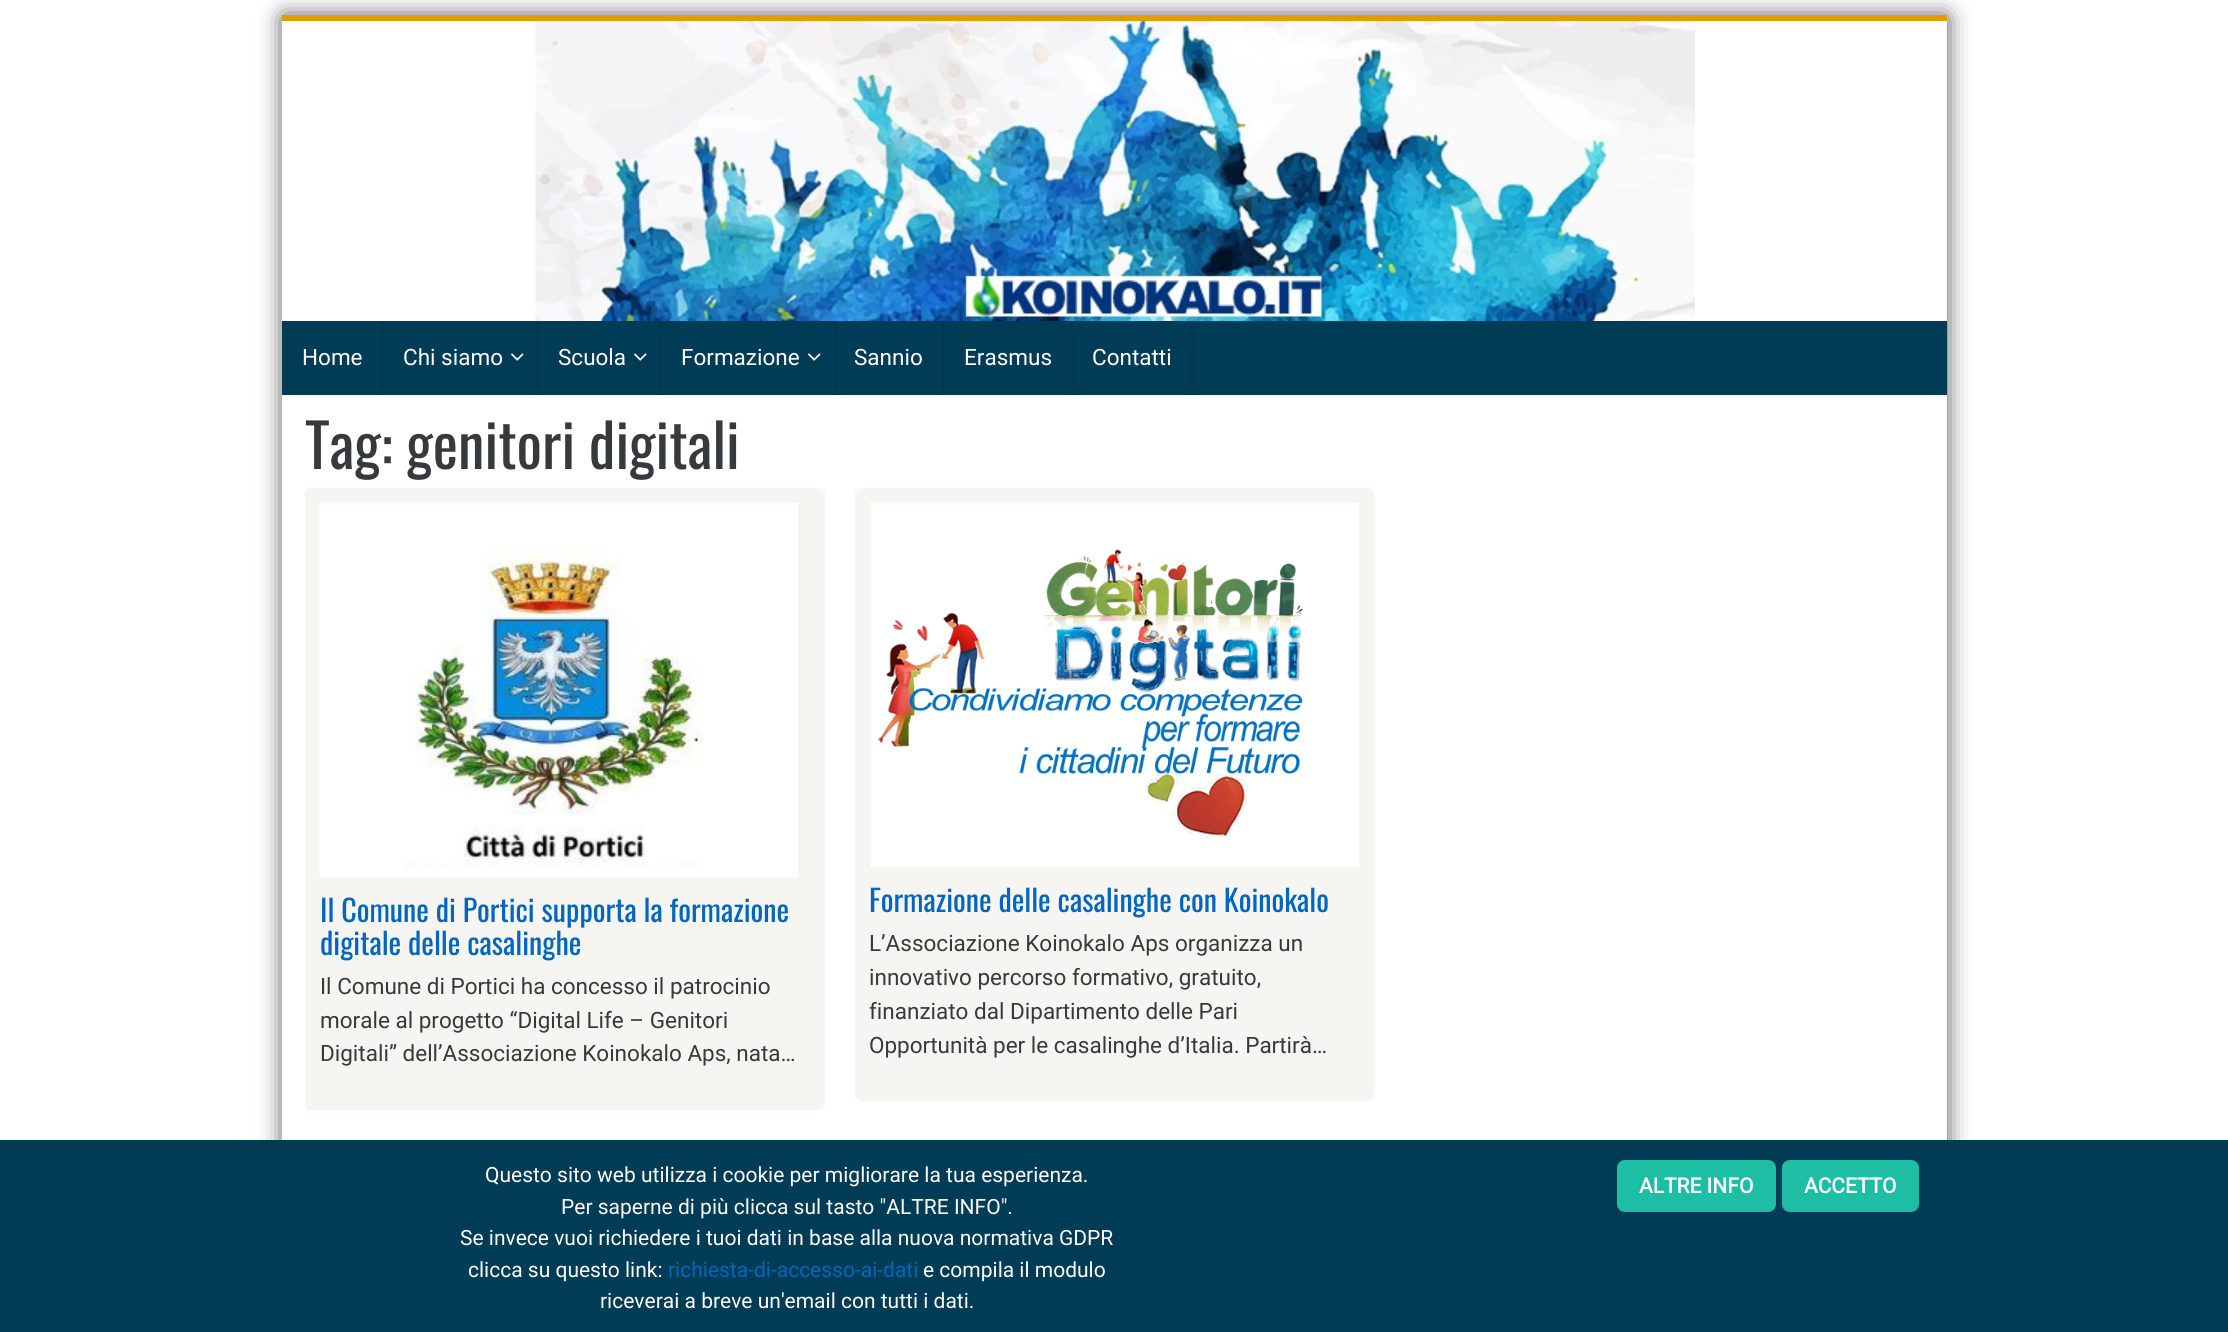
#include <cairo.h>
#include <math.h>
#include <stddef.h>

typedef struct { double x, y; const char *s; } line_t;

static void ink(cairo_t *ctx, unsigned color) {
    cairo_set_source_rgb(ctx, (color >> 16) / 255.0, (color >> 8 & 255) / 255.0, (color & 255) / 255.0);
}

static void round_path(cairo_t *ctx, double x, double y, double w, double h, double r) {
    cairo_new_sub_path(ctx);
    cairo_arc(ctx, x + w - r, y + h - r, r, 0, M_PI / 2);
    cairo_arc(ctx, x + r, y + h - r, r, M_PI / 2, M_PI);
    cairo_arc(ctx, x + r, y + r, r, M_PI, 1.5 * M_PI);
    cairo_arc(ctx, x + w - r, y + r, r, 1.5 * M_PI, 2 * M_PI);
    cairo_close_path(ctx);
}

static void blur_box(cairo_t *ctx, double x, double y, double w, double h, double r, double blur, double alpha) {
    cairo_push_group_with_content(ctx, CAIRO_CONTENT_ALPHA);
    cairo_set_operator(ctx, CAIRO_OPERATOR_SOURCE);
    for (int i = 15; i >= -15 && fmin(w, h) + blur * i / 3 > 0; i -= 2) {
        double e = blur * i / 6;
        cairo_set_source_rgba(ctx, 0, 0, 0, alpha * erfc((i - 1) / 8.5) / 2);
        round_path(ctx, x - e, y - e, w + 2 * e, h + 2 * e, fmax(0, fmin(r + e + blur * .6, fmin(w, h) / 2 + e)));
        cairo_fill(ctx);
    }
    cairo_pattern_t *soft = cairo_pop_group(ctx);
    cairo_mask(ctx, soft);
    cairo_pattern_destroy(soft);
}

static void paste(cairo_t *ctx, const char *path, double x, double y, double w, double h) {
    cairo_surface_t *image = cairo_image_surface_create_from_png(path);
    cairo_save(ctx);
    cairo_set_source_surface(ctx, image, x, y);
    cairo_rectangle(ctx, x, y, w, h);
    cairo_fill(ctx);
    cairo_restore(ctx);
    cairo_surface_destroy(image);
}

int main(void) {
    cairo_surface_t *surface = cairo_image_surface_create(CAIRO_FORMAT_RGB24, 2228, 1332);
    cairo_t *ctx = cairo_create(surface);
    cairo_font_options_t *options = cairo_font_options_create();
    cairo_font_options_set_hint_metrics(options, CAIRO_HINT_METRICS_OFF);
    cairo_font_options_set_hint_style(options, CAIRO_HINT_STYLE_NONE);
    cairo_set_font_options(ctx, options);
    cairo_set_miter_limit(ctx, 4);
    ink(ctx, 0xFFFFFF);
    cairo_paint(ctx);
    ink(ctx, 0x000000);
    blur_box(ctx, 284, 17, 1662, 1222, 0, 12, 0.75);
    ink(ctx, 0xFFFFFF);
    cairo_rectangle(ctx, 282, 21, 1665, 1119);
    cairo_fill(ctx);
    ink(ctx, 0xE09C09);
    cairo_rectangle(ctx, 282, 15, 1665, 6);
    cairo_fill(ctx);
    paste(ctx, "media/1.png", 535, 21, 1160, 300);
    ink(ctx, 0x003C56);
    cairo_rectangle(ctx, 282, 321, 1665, 74);
    cairo_fill(ctx);
    ink(ctx, 0x00364D);
    cairo_rectangle(ctx, 381, 321, 2, 74);
    cairo_fill(ctx);
    cairo_select_font_face(ctx, "Roboto", CAIRO_FONT_SLANT_NORMAL, CAIRO_FONT_WEIGHT_NORMAL);
    cairo_set_font_size(ctx, 22.5);
    ink(ctx, 0xFFFFFF);
    cairo_move_to(ctx, 302, 365);
    cairo_show_text(ctx, "Home");
    ink(ctx, 0x00364D);
    cairo_rectangle(ctx, 537, 321, 2, 74);
    cairo_fill(ctx);
    ink(ctx, 0xFFFFFF);
    cairo_move_to(ctx, 403, 365);
    cairo_show_text(ctx, "Chi siamo");
    paste(ctx, "media/2.png", 511, 353, 13, 8);
    ink(ctx, 0x00364D);
    cairo_rectangle(ctx, 660, 321, 2, 74);
    cairo_fill(ctx);
    ink(ctx, 0xFFFFFF);
    cairo_move_to(ctx, 558, 365);
    cairo_show_text(ctx, "Scuola");
    paste(ctx, "media/2.png", 634, 353, 13, 8);
    ink(ctx, 0x00364D);
    cairo_rectangle(ctx, 834, 321, 2, 74);
    cairo_fill(ctx);
    ink(ctx, 0xFFFFFF);
    cairo_move_to(ctx, 681, 365);
    cairo_show_text(ctx, "Formazione");
    paste(ctx, "media/2.png", 808, 353, 13, 8);
    ink(ctx, 0x00364D);
    cairo_rectangle(ctx, 942, 321, 2, 74);
    cairo_fill(ctx);
    ink(ctx, 0xFFFFFF);
    cairo_move_to(ctx, 854, 365);
    cairo_show_text(ctx, "Sannio");
    ink(ctx, 0x00364D);
    cairo_rectangle(ctx, 1071, 321, 2, 74);
    cairo_fill(ctx);
    ink(ctx, 0xFFFFFF);
    cairo_move_to(ctx, 964, 365);
    cairo_show_text(ctx, "Erasmus");
    ink(ctx, 0x00364D);
    cairo_rectangle(ctx, 1191, 321, 2, 74);
    cairo_fill(ctx);
    ink(ctx, 0xFFFFFF);
    cairo_move_to(ctx, 1092, 365);
    cairo_show_text(ctx, "Contatti");
    cairo_select_font_face(ctx, "Oswald", CAIRO_FONT_SLANT_NORMAL, CAIRO_FONT_WEIGHT_NORMAL);
    cairo_set_font_size(ctx, 60);
    ink(ctx, 0x373A3C);
    cairo_move_to(ctx, 305, 469);
    cairo_show_text(ctx, "Tag: genitori digitali");
    ink(ctx, 0xF6F5F2);
    round_path(ctx, 305, 488, 520, 622, 6);
    cairo_fill(ctx);
    paste(ctx, "media/3.png", 319, 502, 479, 376);
    cairo_set_font_size(ctx, 30);
    ink(ctx, 0x0066BF);
    cairo_move_to(ctx, 320, 922);
    cairo_show_text(ctx, "Il Comune di Portici supporta la formazione");
    cairo_move_to(ctx, 320, 955);
    cairo_show_text(ctx, "digitale delle casalinghe");
    cairo_select_font_face(ctx, "Roboto", CAIRO_FONT_SLANT_NORMAL, CAIRO_FONT_WEIGHT_NORMAL);
    cairo_set_font_size(ctx, 22.5);
    ink(ctx, 0x373A3C);
    {
        static const line_t items[] = {
            {320, 994, "Il Comune di Portici ha concesso il patrocinio"},
            {320, 1028, "morale al progetto “Digital Life – Genitori"},
            {320, 1061, "Digitali” dell’Associazione Koinokalo Aps, nata…"},
        };
        for (size_t i = 0; i < sizeof items / sizeof *items; i++) {
            cairo_move_to(ctx, items[i].x, items[i].y);
            cairo_show_text(ctx, items[i].s);
        }
    }
    ink(ctx, 0xF6F5F2);
    round_path(ctx, 855, 488, 519, 613, 6);
    cairo_fill(ctx);
    paste(ctx, "media/4.png", 870, 502, 489, 365);
    cairo_select_font_face(ctx, "Oswald", CAIRO_FONT_SLANT_NORMAL, CAIRO_FONT_WEIGHT_NORMAL);
    cairo_set_font_size(ctx, 30);
    ink(ctx, 0x0066BF);
    cairo_move_to(ctx, 869, 912);
    cairo_show_text(ctx, "Formazione delle casalinghe con Koinokalo");
    cairo_select_font_face(ctx, "Roboto", CAIRO_FONT_SLANT_NORMAL, CAIRO_FONT_WEIGHT_NORMAL);
    cairo_set_font_size(ctx, 22.5);
    ink(ctx, 0x373A3C);
    {
        static const line_t items[] = {
            {869, 951, "L’Associazione Koinokalo Aps organizza un"},
            {869, 985, "innovativo percorso formativo, gratuito,"},
            {869, 1019, "finanziato dal Dipartimento delle Pari"},
            {869, 1053, "Opportunità per le casalinghe d’Italia. Partirà…"},
        };
        for (size_t i = 0; i < sizeof items / sizeof *items; i++) {
            cairo_move_to(ctx, items[i].x, items[i].y);
            cairo_show_text(ctx, items[i].s);
        }
    }
    ink(ctx, 0x003C56);
    cairo_rectangle(ctx, 0, 1140, 2228, 192);
    cairo_fill(ctx);
    cairo_set_font_size(ctx, 21);
    ink(ctx, 0xFFFFFF);
    {
        static const line_t items[] = {
            {485, 1182, "Questo sito web utilizza i cookie per migliorare la tua esperienza."},
            {561, 1214, "Per saperne di più clicca sul tasto \"ALTRE INFO\"."},
            {460, 1245, "Se invece vuoi richiedere i tuoi dati in base alla nuova normativa GDPR"},
            {468, 1277, "clicca su questo link:"},
        };
        for (size_t i = 0; i < sizeof items / sizeof *items; i++) {
            cairo_move_to(ctx, items[i].x, items[i].y);
            cairo_show_text(ctx, items[i].s);
        }
    }
    ink(ctx, 0x0066BF);
    cairo_move_to(ctx, 668, 1277);
    cairo_show_text(ctx, "richiesta-di-accesso-ai-dati");
    ink(ctx, 0xFFFFFF);
    cairo_move_to(ctx, 923, 1277);
    cairo_show_text(ctx, "e compila il modulo");
    cairo_move_to(ctx, 600, 1308);
    cairo_show_text(ctx, "riceverai a breve un'email con tutti i dati.");
    ink(ctx, 0x1EBEA5);
    round_path(ctx, 1618.5, 1161.5, 156, 49, 6.5);
    cairo_fill_preserve(ctx);
    cairo_set_line_width(ctx, 3);
    cairo_stroke(ctx);
    cairo_select_font_face(ctx, "Roboto", CAIRO_FONT_SLANT_NORMAL, CAIRO_FONT_WEIGHT_BOLD);
    ink(ctx, 0xFFFFFF);
    cairo_move_to(ctx, 1639, 1193);
    cairo_show_text(ctx, "ALTRE INFO");
    ink(ctx, 0x1EBEA5);
    round_path(ctx, 1783.5, 1161.5, 134, 49, 6.5);
    cairo_fill_preserve(ctx);
    cairo_stroke(ctx);
    ink(ctx, 0xFFFFFF);
    cairo_move_to(ctx, 1804, 1193);
    cairo_show_text(ctx, "ACCETTO");
    cairo_surface_write_to_png(surface, "image.png");
    cairo_font_options_destroy(options);
    cairo_destroy(ctx);
    cairo_surface_destroy(surface);
    return 0;
}
